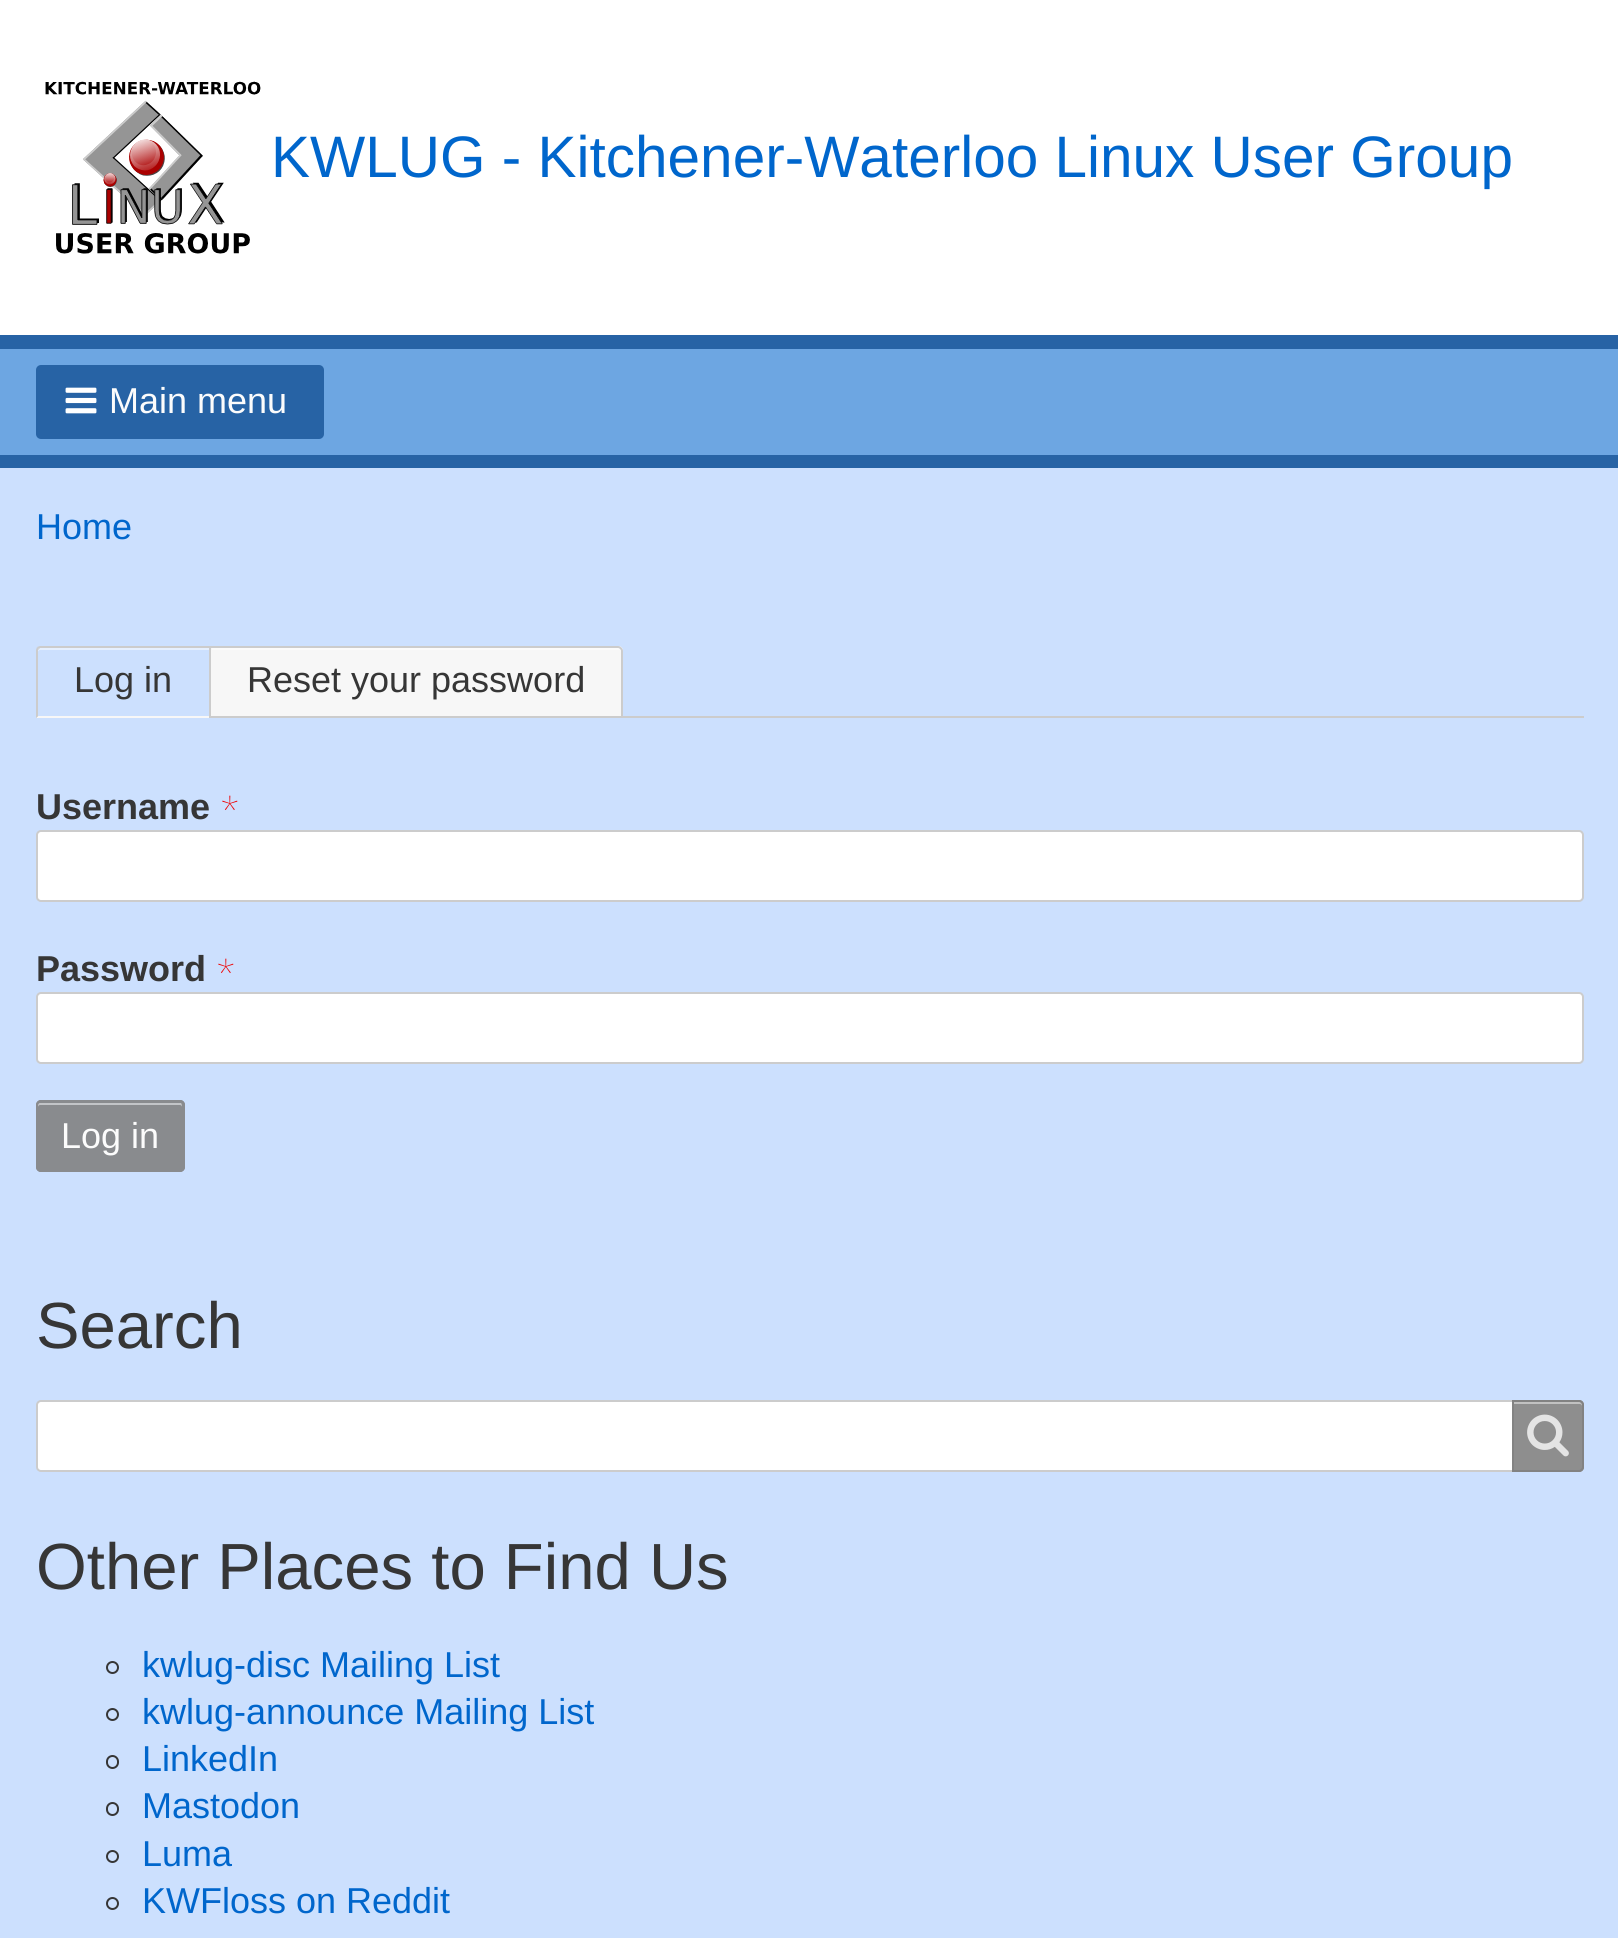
#include <cairo.h>
#include <math.h>
#include <stddef.h>

typedef struct { double x, y, w, h; unsigned color; } box_t;

static void ink(cairo_t *ctx, unsigned color) {
    cairo_set_source_rgb(ctx, (color >> 16) / 255.0, (color >> 8 & 255) / 255.0, (color & 255) / 255.0);
}

static void round_path(cairo_t *ctx, double x, double y, double w, double h, double r) {
    cairo_new_sub_path(ctx);
    cairo_arc(ctx, x + w - r, y + h - r, r, 0, M_PI / 2);
    cairo_arc(ctx, x + r, y + h - r, r, M_PI / 2, M_PI);
    cairo_arc(ctx, x + r, y + r, r, M_PI, 1.5 * M_PI);
    cairo_arc(ctx, x + w - r, y + r, r, 1.5 * M_PI, 2 * M_PI);
    cairo_close_path(ctx);
}

static void paste(cairo_t *ctx, const char *path, double x, double y, double w, double h) {
    cairo_surface_t *image = cairo_image_surface_create_from_png(path);
    cairo_save(ctx);
    cairo_set_source_surface(ctx, image, x, y);
    cairo_rectangle(ctx, x, y, w, h);
    cairo_fill(ctx);
    cairo_restore(ctx);
    cairo_surface_destroy(image);
}

int main(void) {
    cairo_surface_t *surface = cairo_image_surface_create(CAIRO_FORMAT_RGB24, 1618, 1938);
    cairo_t *ctx = cairo_create(surface);
    cairo_font_options_t *options = cairo_font_options_create();
    cairo_font_options_set_hint_metrics(options, CAIRO_HINT_METRICS_OFF);
    cairo_font_options_set_hint_style(options, CAIRO_HINT_STYLE_NONE);
    cairo_set_font_options(ctx, options);
    cairo_set_miter_limit(ctx, 4);
    ink(ctx, 0xFFFFFF);
    cairo_paint(ctx);
    paste(ctx, "media/1.png", 45, 81, 216, 173);
    cairo_select_font_face(ctx, "Liberation Sans", CAIRO_FONT_SLANT_NORMAL, CAIRO_FONT_WEIGHT_NORMAL);
    cairo_set_font_size(ctx, 58.5);
    ink(ctx, 0x0066CC);
    cairo_move_to(ctx, 271, 177);
    cairo_show_text(ctx, "KWLUG - Kitchener-Waterloo Linux User Group");
    {
        static const box_t items[] = {
            {0, 349, 1618, 106, 0x6DA6E2},
            {0, 335, 1618, 14, 0x2763A5},
            {0, 455, 1618, 13, 0x2763A5},
        };
        for (size_t i = 0; i < sizeof items / sizeof *items; i++) {
            ink(ctx, items[i].color);
            cairo_rectangle(ctx, items[i].x, items[i].y, items[i].w, items[i].h);
            cairo_fill(ctx);
        }
    }
    round_path(ctx, 36, 365, 288, 74, 5);
    cairo_fill(ctx);
    paste(ctx, "media/2.png", 65, 387, 32, 27);
    cairo_set_font_size(ctx, 36);
    ink(ctx, 0xFCFCFC);
    cairo_move_to(ctx, 109, 413);
    cairo_show_text(ctx, "Main menu");
    ink(ctx, 0xCCE0FE);
    cairo_rectangle(ctx, 0, 468, 1618, 1470);
    cairo_fill(ctx);
    ink(ctx, 0x0066CC);
    cairo_move_to(ctx, 36, 539);
    cairo_show_text(ctx, "Home");
    ink(ctx, 0xCCCCCC);
    cairo_rectangle(ctx, 36, 716, 1548, 2);
    cairo_fill(ctx);
    ink(ctx, 0xE6F0FF);
    cairo_new_path(ctx);
    cairo_move_to(ctx, 40, 650);
    cairo_line_to(ctx, 209, 650);
    cairo_line_to(ctx, 209, 648);
    cairo_line_to(ctx, 40, 648);
    cairo_curve_to(ctx, 38, 648, 38, 650, 38, 652);
    cairo_curve_to(ctx, 38, 651, 39, 650, 40, 650);
    cairo_close_path(ctx);
    cairo_fill(ctx);
    ink(ctx, 0xCCCCCC);
    cairo_new_path(ctx);
    cairo_move_to(ctx, 40, 646);
    cairo_line_to(ctx, 37, 647);
    cairo_line_to(ctx, 39, 649);
    cairo_line_to(ctx, 40, 648);
    cairo_line_to(ctx, 209, 648);
    cairo_line_to(ctx, 211, 646);
    cairo_close_path(ctx);
    cairo_fill(ctx);
    ink(ctx, 0xF7F7F7);
    cairo_new_path(ctx);
    cairo_move_to(ctx, 212, 718);
    cairo_line_to(ctx, 209, 715);
    cairo_line_to(ctx, 209, 716);
    cairo_line_to(ctx, 38, 716);
    cairo_line_to(ctx, 36, 718);
    cairo_close_path(ctx);
    cairo_fill(ctx);
    ink(ctx, 0xCCCCCC);
    cairo_new_path(ctx);
    cairo_move_to(ctx, 36, 718);
    cairo_line_to(ctx, 38, 716);
    cairo_line_to(ctx, 38, 650);
    cairo_line_to(ctx, 39, 649);
    cairo_line_to(ctx, 37, 647);
    cairo_line_to(ctx, 36, 650);
    cairo_close_path(ctx);
    cairo_fill(ctx);
    ink(ctx, 0x363636);
    cairo_move_to(ctx, 74, 692);
    cairo_show_text(ctx, "Log in");
    ink(ctx, 0xF7F7F7);
    cairo_new_path(ctx);
    cairo_move_to(ctx, 209, 646);
    cairo_line_to(ctx, 618, 646);
    cairo_curve_to(ctx, 621, 646, 623, 648, 623, 651);
    cairo_line_to(ctx, 623, 718);
    cairo_line_to(ctx, 209, 718);
    cairo_close_path(ctx);
    cairo_fill(ctx);
    ink(ctx, 0xFBFBFB);
    cairo_new_path(ctx);
    cairo_move_to(ctx, 212, 650);
    cairo_line_to(ctx, 619, 650);
    cairo_curve_to(ctx, 620, 650, 621, 651, 621, 652);
    cairo_curve_to(ctx, 621, 651, 621, 649, 620, 648);
    cairo_line_to(ctx, 212, 648);
    cairo_close_path(ctx);
    cairo_fill(ctx);
    cairo_new_path(ctx);
    cairo_move_to(ctx, 210, 647);
    cairo_line_to(ctx, 618, 647);
    cairo_curve_to(ctx, 620, 647, 622, 649, 622, 651);
    cairo_line_to(ctx, 622, 717);
    cairo_line_to(ctx, 210, 717);
    cairo_close_path(ctx);
    ink(ctx, 0xCCCCCC);
    cairo_stroke(ctx);
    ink(ctx, 0x363636);
    cairo_move_to(ctx, 247, 692);
    cairo_show_text(ctx, "Reset your password");
    cairo_select_font_face(ctx, "Liberation Sans", CAIRO_FONT_SLANT_NORMAL, CAIRO_FONT_WEIGHT_BOLD);
    cairo_move_to(ctx, 36, 819);
    cairo_show_text(ctx, "Username");
    cairo_select_font_face(ctx, "Noto Sans Thin", CAIRO_FONT_SLANT_NORMAL, CAIRO_FONT_WEIGHT_NORMAL);
    ink(ctx, 0xEE0000);
    cairo_move_to(ctx, 220, 804);
    cairo_show_text(ctx, "⁎");
    ink(ctx, 0xFFFFFF);
    round_path(ctx, 37, 831, 1546, 70, 4);
    cairo_fill_preserve(ctx);
    ink(ctx, 0xCCCCCC);
    cairo_stroke(ctx);
    cairo_select_font_face(ctx, "Liberation Sans", CAIRO_FONT_SLANT_NORMAL, CAIRO_FONT_WEIGHT_BOLD);
    ink(ctx, 0x363636);
    cairo_move_to(ctx, 36, 981);
    cairo_show_text(ctx, "Password");
    cairo_select_font_face(ctx, "Noto Sans Thin", CAIRO_FONT_SLANT_NORMAL, CAIRO_FONT_WEIGHT_NORMAL);
    ink(ctx, 0xEE0000);
    cairo_move_to(ctx, 216, 967);
    cairo_show_text(ctx, "⁎");
    ink(ctx, 0xFFFFFF);
    round_path(ctx, 37, 993, 1546, 70, 4);
    cairo_fill_preserve(ctx);
    ink(ctx, 0xCCCCCC);
    cairo_stroke(ctx);
    ink(ctx, 0x898B8E);
    round_path(ctx, 36, 1100, 149, 72, 5);
    cairo_fill(ctx);
    ink(ctx, 0xC2C4C7);
    cairo_new_path(ctx);
    cairo_move_to(ctx, 40, 1105);
    cairo_line_to(ctx, 180, 1105);
    cairo_curve_to(ctx, 181, 1105, 182, 1106, 182, 1107);
    cairo_curve_to(ctx, 182, 1106, 182, 1104, 181, 1103);
    cairo_line_to(ctx, 40, 1103);
    cairo_curve_to(ctx, 38, 1103, 38, 1105, 38, 1107);
    cairo_curve_to(ctx, 38, 1106, 39, 1105, 40, 1105);
    cairo_close_path(ctx);
    cairo_fill(ctx);
    round_path(ctx, 37, 1101, 147, 70, 4);
    ink(ctx, 0x898B8E);
    cairo_stroke(ctx);
    cairo_select_font_face(ctx, "Liberation Sans", CAIRO_FONT_SLANT_NORMAL, CAIRO_FONT_WEIGHT_NORMAL);
    ink(ctx, 0xFCFCFC);
    cairo_move_to(ctx, 61, 1148);
    cairo_show_text(ctx, "Log in");
    cairo_set_font_size(ctx, 65.25);
    ink(ctx, 0x363636);
    cairo_move_to(ctx, 36, 1348);
    cairo_show_text(ctx, "Search");
    ink(ctx, 0xFFFFFF);
    round_path(ctx, 37, 1401, 1546, 70, 4);
    cairo_fill_preserve(ctx);
    ink(ctx, 0xCCCCCC);
    cairo_stroke(ctx);
    cairo_set_source_rgba(ctx, 0.51, 0.51, 0.51, 0.9);
    cairo_new_path(ctx);
    cairo_move_to(ctx, 1512, 1400);
    cairo_line_to(ctx, 1579, 1400);
    cairo_curve_to(ctx, 1582, 1400, 1584, 1402, 1584, 1405);
    cairo_line_to(ctx, 1584, 1467);
    cairo_curve_to(ctx, 1584, 1470, 1582, 1472, 1579, 1472);
    cairo_line_to(ctx, 1512, 1472);
    cairo_close_path(ctx);
    cairo_fill(ctx);
    paste(ctx, "media/3.png", 1527, 1414, 42, 43);
    ink(ctx, 0xC1C1C1);
    cairo_new_path(ctx);
    cairo_move_to(ctx, 1514, 1404);
    cairo_line_to(ctx, 1580, 1404);
    cairo_curve_to(ctx, 1581, 1404, 1582, 1405, 1582, 1406);
    cairo_line_to(ctx, 1582, 1404);
    cairo_curve_to(ctx, 1582, 1403, 1581, 1402, 1580, 1402);
    cairo_line_to(ctx, 1514, 1402);
    cairo_close_path(ctx);
    cairo_fill(ctx);
    cairo_new_path(ctx);
    cairo_move_to(ctx, 1513, 1401);
    cairo_line_to(ctx, 1579, 1401);
    cairo_curve_to(ctx, 1581, 1401, 1583, 1403, 1583, 1405);
    cairo_line_to(ctx, 1583, 1467);
    cairo_curve_to(ctx, 1583, 1469, 1581, 1471, 1579, 1471);
    cairo_line_to(ctx, 1513, 1471);
    cairo_close_path(ctx);
    cairo_set_source_rgba(ctx, 0.51, 0.51, 0.51, 0.9);
    cairo_stroke(ctx);
    ink(ctx, 0x363636);
    cairo_move_to(ctx, 36, 1589);
    cairo_show_text(ctx, "Other Places to Find Us");
    cairo_new_path(ctx);
    cairo_arc(ctx, 112.5, 1667.5, 5.5, 0, 2 * M_PI);
    cairo_stroke(ctx);
    cairo_set_font_size(ctx, 36);
    ink(ctx, 0x0066CC);
    cairo_move_to(ctx, 142, 1677);
    cairo_show_text(ctx, "kwlug-disc Mailing List");
    cairo_new_path(ctx);
    cairo_arc(ctx, 112.5, 1714.5, 5.5, 0, 2 * M_PI);
    ink(ctx, 0x363636);
    cairo_stroke(ctx);
    ink(ctx, 0x0066CC);
    cairo_move_to(ctx, 142, 1724);
    cairo_show_text(ctx, "kwlug-announce Mailing List");
    round_path(ctx, 107, 1756, 11, 12, 5.5);
    ink(ctx, 0x363636);
    cairo_stroke(ctx);
    ink(ctx, 0x0066CC);
    cairo_move_to(ctx, 142, 1771);
    cairo_show_text(ctx, "LinkedIn");
    round_path(ctx, 107, 1803, 11, 12, 5.5);
    ink(ctx, 0x363636);
    cairo_stroke(ctx);
    ink(ctx, 0x0066CC);
    cairo_move_to(ctx, 142, 1818);
    cairo_show_text(ctx, "Mastodon");
    cairo_new_path(ctx);
    cairo_arc(ctx, 112.5, 1856.5, 5.5, 0, 2 * M_PI);
    ink(ctx, 0x363636);
    cairo_stroke(ctx);
    ink(ctx, 0x0066CC);
    cairo_move_to(ctx, 142, 1866);
    cairo_show_text(ctx, "Luma");
    cairo_new_path(ctx);
    cairo_arc(ctx, 112.5, 1903.5, 5.5, 0, 2 * M_PI);
    ink(ctx, 0x363636);
    cairo_stroke(ctx);
    ink(ctx, 0x0066CC);
    cairo_move_to(ctx, 142, 1913);
    cairo_show_text(ctx, "KWFloss on Reddit");
    cairo_surface_write_to_png(surface, "image.png");
    cairo_font_options_destroy(options);
    cairo_destroy(ctx);
    cairo_surface_destroy(surface);
    return 0;
}
